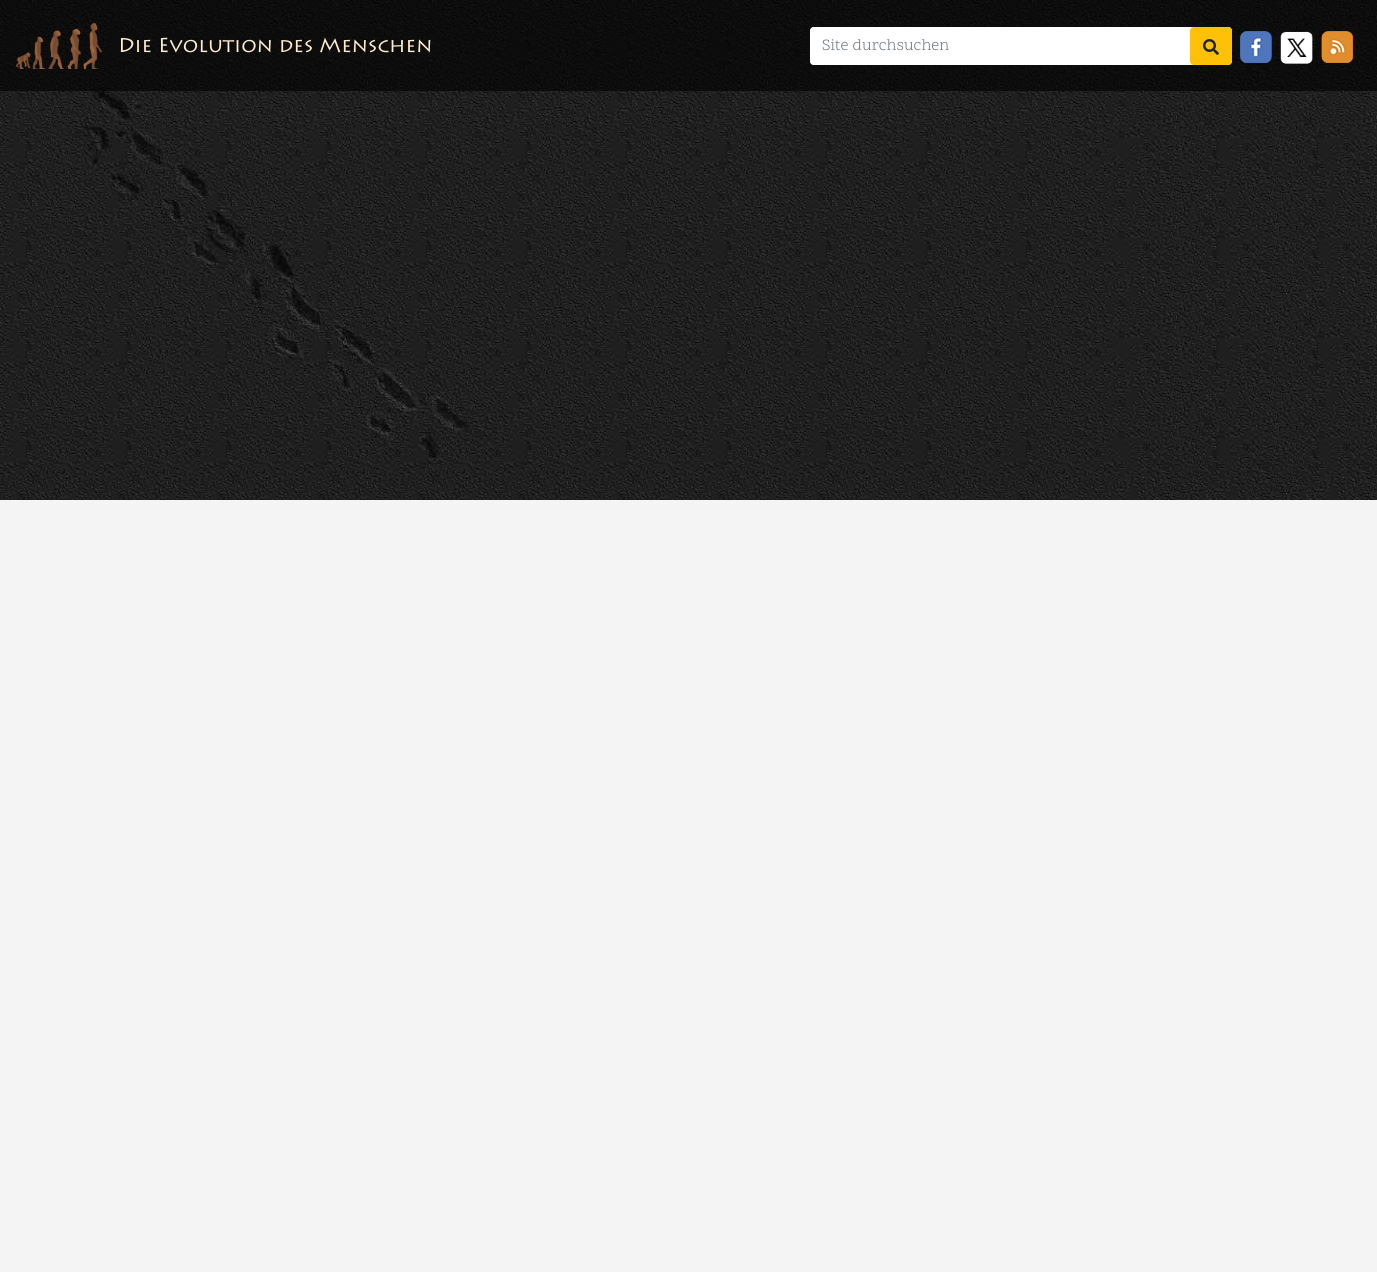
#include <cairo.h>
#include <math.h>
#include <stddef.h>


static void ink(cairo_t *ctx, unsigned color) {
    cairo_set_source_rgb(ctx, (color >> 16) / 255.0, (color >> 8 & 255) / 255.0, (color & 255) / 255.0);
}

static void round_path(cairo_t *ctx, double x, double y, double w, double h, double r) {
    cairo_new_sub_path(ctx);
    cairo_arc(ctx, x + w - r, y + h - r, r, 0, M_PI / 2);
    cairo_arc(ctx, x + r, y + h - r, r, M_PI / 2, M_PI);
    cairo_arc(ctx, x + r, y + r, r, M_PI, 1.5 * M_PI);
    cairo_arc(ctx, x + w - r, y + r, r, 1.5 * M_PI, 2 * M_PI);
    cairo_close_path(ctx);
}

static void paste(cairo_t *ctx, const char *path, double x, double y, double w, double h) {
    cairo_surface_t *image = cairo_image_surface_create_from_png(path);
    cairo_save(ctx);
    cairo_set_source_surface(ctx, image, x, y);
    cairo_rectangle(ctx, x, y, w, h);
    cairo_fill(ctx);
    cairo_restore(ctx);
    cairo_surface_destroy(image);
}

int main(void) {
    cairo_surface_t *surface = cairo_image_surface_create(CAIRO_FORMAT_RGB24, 1377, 1272);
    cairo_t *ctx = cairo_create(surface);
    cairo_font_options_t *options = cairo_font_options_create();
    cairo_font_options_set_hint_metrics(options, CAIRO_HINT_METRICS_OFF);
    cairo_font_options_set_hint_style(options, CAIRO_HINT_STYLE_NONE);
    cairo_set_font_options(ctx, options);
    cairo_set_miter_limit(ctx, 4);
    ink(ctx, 0xF4F4F4);
    cairo_paint(ctx);
    paste(ctx, "media/1.png", 0, 0, 1377, 500);
    cairo_set_source_rgba(ctx, 0, 0, 0, 0.6);
    cairo_rectangle(ctx, 0, 0, 1377, 91);
    cairo_fill(ctx);
    paste(ctx, "media/2.png", 16, 23, 86, 46);
    cairo_select_font_face(ctx, "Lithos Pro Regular", CAIRO_FONT_SLANT_NORMAL, CAIRO_FONT_WEIGHT_NORMAL);
    cairo_set_font_size(ctx, 20);
    ink(ctx, 0xFFEBCD);
    cairo_move_to(ctx, 118, 52);
    cairo_show_text(ctx, "Die Evolution des Menschen");
    ink(ctx, 0xFFFFFF);
    round_path(ctx, 810, 27, 422, 38, 4);
    cairo_fill(ctx);
    round_path(ctx, 810, 27, 380, 38, 4);
    cairo_fill(ctx);
    cairo_select_font_face(ctx, "Scope One", CAIRO_FONT_SLANT_NORMAL, CAIRO_FONT_WEIGHT_NORMAL);
    cairo_set_font_size(ctx, 16);
    ink(ctx, 0x6C757D);
    cairo_move_to(ctx, 822, 50);
    cairo_show_text(ctx, "Site durchsuchen");
    ink(ctx, 0xFFC107);
    round_path(ctx, 1190.5, 27.5, 41, 37, 3.5);
    cairo_fill_preserve(ctx);
    cairo_set_line_width(ctx, 1);
    cairo_stroke(ctx);
    paste(ctx, "media/3.png", 1203, 39, 16, 16);
    paste(ctx, "media/4.png", 1240, 31, 32, 32);
    paste(ctx, "media/5.png", 1280, 31, 33, 33);
    paste(ctx, "media/6.png", 1321, 31, 32, 32);
    cairo_surface_write_to_png(surface, "image.png");
    cairo_font_options_destroy(options);
    cairo_destroy(ctx);
    cairo_surface_destroy(surface);
    return 0;
}
